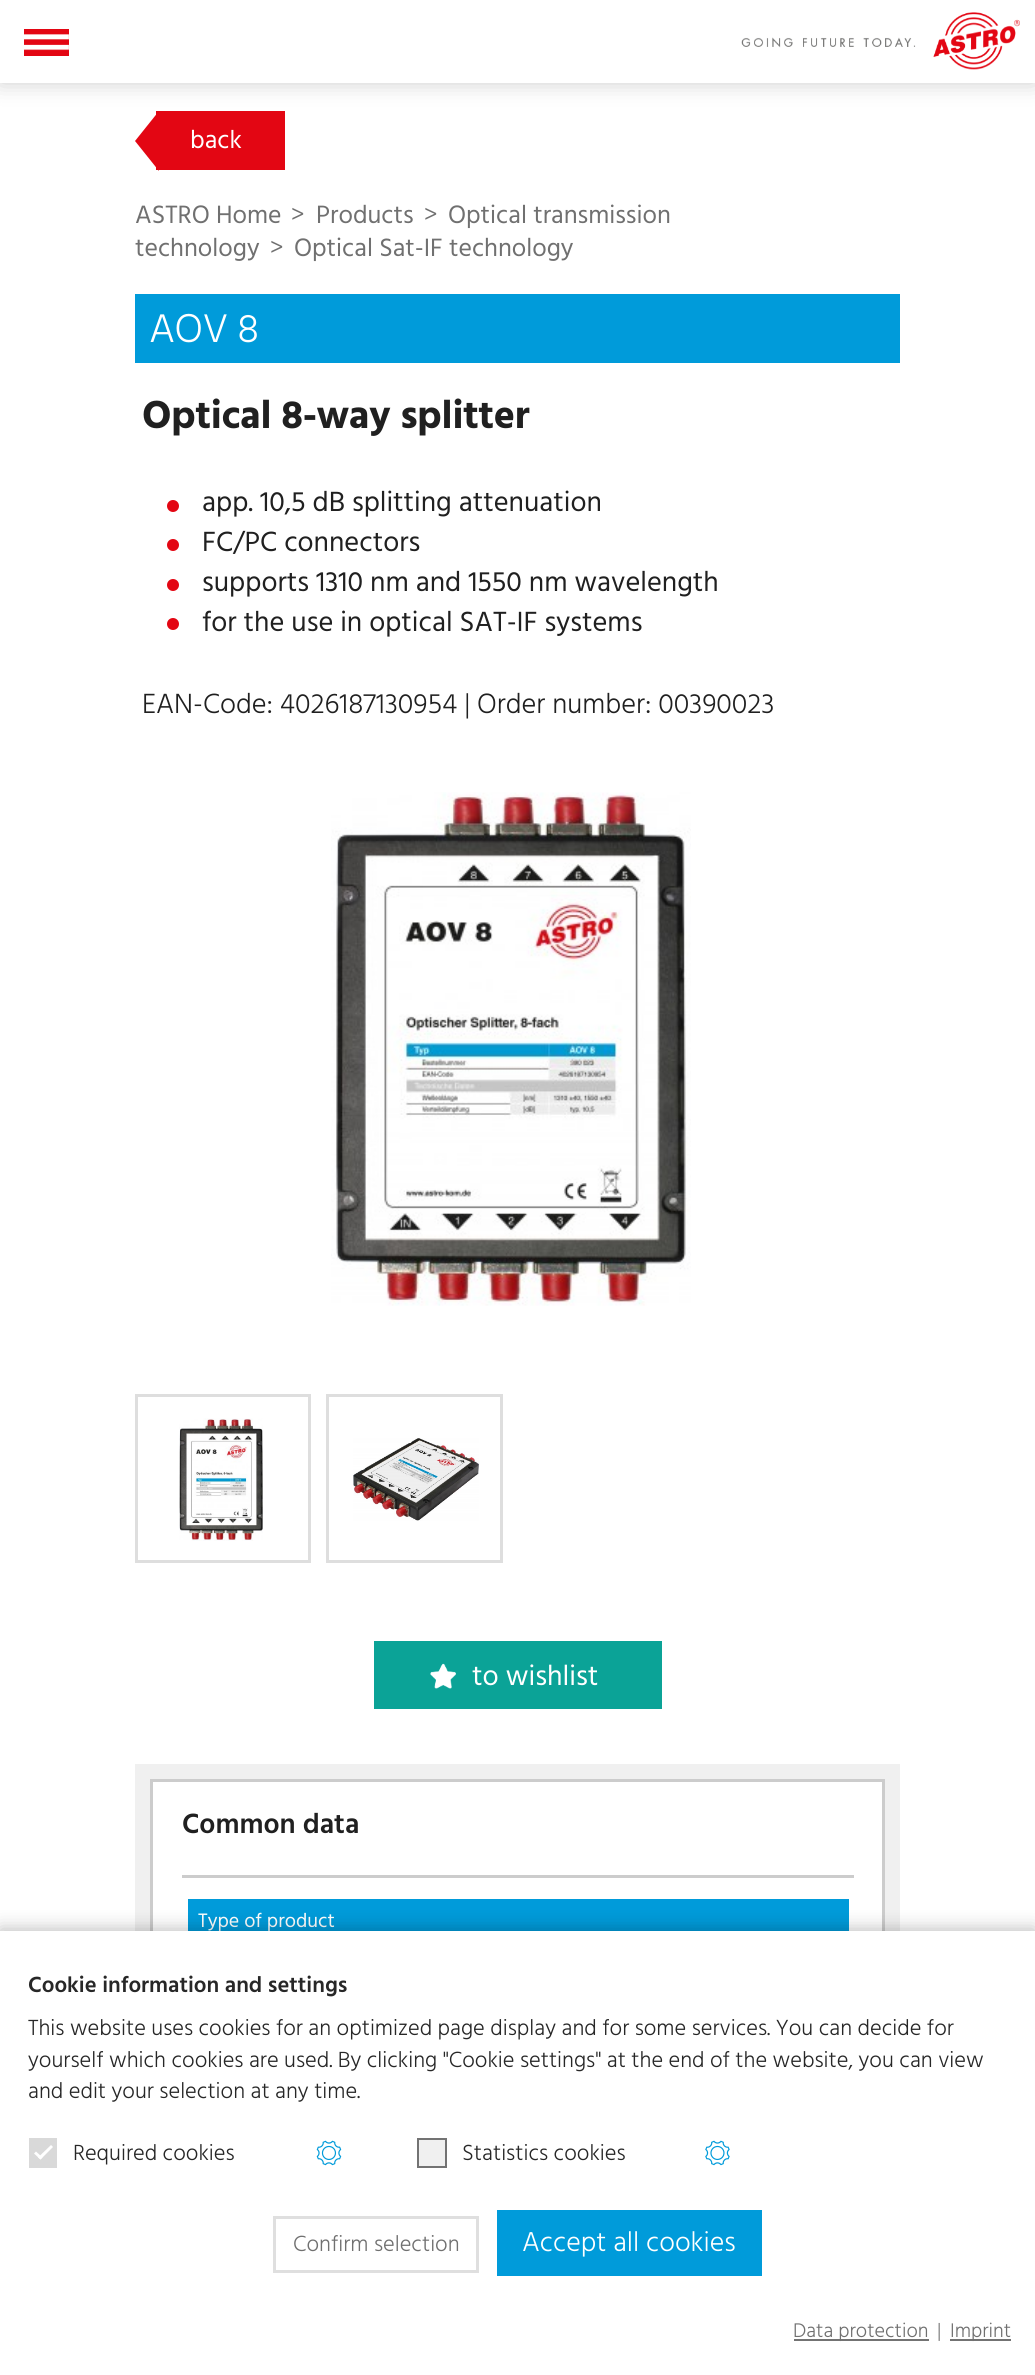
#include <cairo.h>
#include <math.h>
#include <stddef.h>

typedef struct { double x, y; const char *s; } line_t;

static void ink(cairo_t *ctx, unsigned color) {
    cairo_set_source_rgb(ctx, (color >> 16) / 255.0, (color >> 8 & 255) / 255.0, (color & 255) / 255.0);
}

static void write_spaced(cairo_t *ctx, double x, double y, const char *s, double letter, double word) {
    cairo_move_to(ctx, x, y);
    while (*s) {
        char ch[5] = {0};
        int n = 0;
        do ch[n++] = *s++; while ((*s & 0xC0) == 0x80);
        cairo_show_text(ctx, ch);
        cairo_rel_move_to(ctx, letter + word * (*ch == ' '), 0);
    }
}

static void round_path(cairo_t *ctx, double x, double y, double w, double h, double r) {
    cairo_new_sub_path(ctx);
    cairo_arc(ctx, x + w - r, y + h - r, r, 0, M_PI / 2);
    cairo_arc(ctx, x + r, y + h - r, r, M_PI / 2, M_PI);
    cairo_arc(ctx, x + r, y + r, r, M_PI, 1.5 * M_PI);
    cairo_arc(ctx, x + w - r, y + r, r, 1.5 * M_PI, 2 * M_PI);
    cairo_close_path(ctx);
}

static void blur_box(cairo_t *ctx, double x, double y, double w, double h, double r, double blur, double alpha) {
    cairo_push_group_with_content(ctx, CAIRO_CONTENT_ALPHA);
    cairo_set_operator(ctx, CAIRO_OPERATOR_SOURCE);
    for (int i = 15; i >= -15 && fmin(w, h) + blur * i / 3 > 0; i -= 2) {
        double e = blur * i / 6;
        cairo_set_source_rgba(ctx, 0, 0, 0, alpha * erfc((i - 1) / 8.5) / 2);
        round_path(ctx, x - e, y - e, w + 2 * e, h + 2 * e, fmax(0, fmin(r + e + blur * .6, fmin(w, h) / 2 + e)));
        cairo_fill(ctx);
    }
    cairo_pattern_t *soft = cairo_pop_group(ctx);
    cairo_mask(ctx, soft);
    cairo_pattern_destroy(soft);
}

static void paste(cairo_t *ctx, const char *path, double x, double y, double w, double h) {
    cairo_surface_t *image = cairo_image_surface_create_from_png(path);
    cairo_save(ctx);
    cairo_set_source_surface(ctx, image, x, y);
    cairo_rectangle(ctx, x, y, w, h);
    cairo_fill(ctx);
    cairo_restore(ctx);
    cairo_surface_destroy(image);
}

int main(void) {
    cairo_surface_t *surface = cairo_image_surface_create(CAIRO_FORMAT_RGB24, 1035, 2375);
    cairo_t *ctx = cairo_create(surface);
    cairo_font_options_t *options = cairo_font_options_create();
    cairo_font_options_set_hint_metrics(options, CAIRO_HINT_METRICS_OFF);
    cairo_font_options_set_hint_style(options, CAIRO_HINT_STYLE_NONE);
    cairo_set_font_options(ctx, options);
    cairo_set_miter_limit(ctx, 4);
    ink(ctx, 0xFFFFFF);
    cairo_paint(ctx);
    ink(ctx, 0xE30613);
    cairo_rectangle(ctx, 156, 111, 129, 59);
    cairo_fill(ctx);
    cairo_new_path(ctx);
    cairo_move_to(ctx, 159, 111);
    cairo_line_to(ctx, 159, 171);
    cairo_line_to(ctx, 135, 141);
    cairo_close_path(ctx);
    cairo_fill(ctx);
    ink(ctx, 0x000000);
    blur_box(ctx, 0, 0, 1035, 83, 0, 11, 0.2);
    ink(ctx, 0xFFFFFF);
    cairo_rectangle(ctx, 0, 0, 1035, 83);
    cairo_fill(ctx);
    ink(ctx, 0xE30613);
    cairo_rectangle(ctx, 24, 29, 45, 27);
    cairo_fill(ctx);
    paste(ctx, "media/1.png", 24, 34, 45, 17);
    paste(ctx, "media/2.png", 741, 12, 279, 58);
    cairo_select_font_face(ctx, "Hind", CAIRO_FONT_SLANT_NORMAL, CAIRO_FONT_WEIGHT_NORMAL);
    cairo_set_font_size(ctx, 25.75);
    ink(ctx, 0xFFFFFF);
    cairo_move_to(ctx, 190, 148);
    cairo_show_text(ctx, "back");
    ink(ctx, 0x707070);
    cairo_move_to(ctx, 135, 223);
    cairo_show_text(ctx, "ASTRO Home");
    cairo_select_font_face(ctx, "Hind Light", CAIRO_FONT_SLANT_NORMAL, CAIRO_FONT_WEIGHT_NORMAL);
    cairo_set_font_size(ctx, 27);
    cairo_move_to(ctx, 291, 223);
    cairo_show_text(ctx, ">");
    cairo_select_font_face(ctx, "Hind", CAIRO_FONT_SLANT_NORMAL, CAIRO_FONT_WEIGHT_NORMAL);
    cairo_set_font_size(ctx, 25.75);
    cairo_move_to(ctx, 316, 223);
    cairo_show_text(ctx, "Products");
    cairo_select_font_face(ctx, "Hind Light", CAIRO_FONT_SLANT_NORMAL, CAIRO_FONT_WEIGHT_NORMAL);
    cairo_set_font_size(ctx, 27);
    cairo_move_to(ctx, 424, 223);
    cairo_show_text(ctx, ">");
    cairo_select_font_face(ctx, "Hind", CAIRO_FONT_SLANT_NORMAL, CAIRO_FONT_WEIGHT_NORMAL);
    cairo_set_font_size(ctx, 25.75);
    cairo_move_to(ctx, 448, 223);
    cairo_show_text(ctx, "Optical transmission");
    cairo_move_to(ctx, 135, 256);
    cairo_show_text(ctx, "technology");
    cairo_select_font_face(ctx, "Hind Light", CAIRO_FONT_SLANT_NORMAL, CAIRO_FONT_WEIGHT_NORMAL);
    cairo_set_font_size(ctx, 27);
    cairo_move_to(ctx, 270, 256);
    cairo_show_text(ctx, ">");
    cairo_select_font_face(ctx, "Hind", CAIRO_FONT_SLANT_NORMAL, CAIRO_FONT_WEIGHT_NORMAL);
    cairo_set_font_size(ctx, 25.75);
    cairo_move_to(ctx, 294, 256);
    cairo_show_text(ctx, "Optical Sat-IF technology");
    ink(ctx, 0x009BDA);
    cairo_rectangle(ctx, 135, 294, 765, 69);
    cairo_fill(ctx);
    cairo_select_font_face(ctx, "Hind Light", CAIRO_FONT_SLANT_NORMAL, CAIRO_FONT_WEIGHT_NORMAL);
    cairo_set_font_size(ctx, 41);
    ink(ctx, 0xFFFFFF);
    write_spaced(ctx, 149, 342, "AOV 8", -0.5, 0);
    ink(ctx, 0x0BA397);
    cairo_rectangle(ctx, 374, 1641, 288, 68);
    cairo_fill(ctx);
    paste(ctx, "media/3.png", 430, 1663, 26, 26);
    cairo_select_font_face(ctx, "Hind", CAIRO_FONT_SLANT_NORMAL, CAIRO_FONT_WEIGHT_NORMAL);
    cairo_set_font_size(ctx, 28.75);
    ink(ctx, 0xFFFFFF);
    cairo_move_to(ctx, 472, 1685);
    cairo_show_text(ctx, "to wishlist");
    cairo_select_font_face(ctx, "Hind", CAIRO_FONT_SLANT_NORMAL, CAIRO_FONT_WEIGHT_BOLD);
    cairo_set_font_size(ctx, 40);
    ink(ctx, 0x202020);
    write_spaced(ctx, 142, 428, "Optical 8-way splitter", -0.2, 0);
    ink(ctx, 0xE30613);
    cairo_new_path(ctx);
    cairo_arc(ctx, 173, 506, 6, 0, 2 * M_PI);
    cairo_fill(ctx);
    cairo_select_font_face(ctx, "Hind", CAIRO_FONT_SLANT_NORMAL, CAIRO_FONT_WEIGHT_NORMAL);
    cairo_set_font_size(ctx, 28.5);
    ink(ctx, 0x202020);
    cairo_move_to(ctx, 202, 511);
    cairo_show_text(ctx, "app. 10,5 dB splitting attenuation");
    ink(ctx, 0xE30613);
    cairo_new_path(ctx);
    cairo_arc(ctx, 173, 545, 6, 0, 2 * M_PI);
    cairo_fill(ctx);
    ink(ctx, 0x202020);
    cairo_move_to(ctx, 202, 551);
    cairo_show_text(ctx, "FC/PC connectors");
    ink(ctx, 0xE30613);
    cairo_new_path(ctx);
    cairo_arc(ctx, 173, 585, 6, 0, 2 * M_PI);
    cairo_fill(ctx);
    ink(ctx, 0x202020);
    cairo_move_to(ctx, 202, 591);
    cairo_show_text(ctx, "supports 1310 nm and 1550 nm wavelength");
    ink(ctx, 0xE30613);
    cairo_new_path(ctx);
    cairo_arc(ctx, 173, 624, 6, 0, 2 * M_PI);
    cairo_fill(ctx);
    ink(ctx, 0x202020);
    cairo_move_to(ctx, 202, 631);
    cairo_show_text(ctx, "for the use in optical SAT-IF systems");
    cairo_select_font_face(ctx, "Hind Light", CAIRO_FONT_SLANT_NORMAL, CAIRO_FONT_WEIGHT_NORMAL);
    cairo_move_to(ctx, 142, 713);
    cairo_show_text(ctx, "EAN-Code: 4026187130954 | Order number: 00390023");
    paste(ctx, "media/4.png", 331, 792, 360, 514);
    cairo_rectangle(ctx, 136.5, 1395.5, 173, 166);
    ink(ctx, 0xDEDEDE);
    cairo_set_line_width(ctx, 3);
    cairo_stroke(ctx);
    paste(ctx, "media/5.png", 179, 1418, 84, 123);
    cairo_rectangle(ctx, 327.5, 1395.5, 174, 166);
    cairo_stroke(ctx);
    paste(ctx, "media/6.png", 353, 1438, 126, 83);
    cairo_rectangle(ctx, 142.5, 1771.5, 750, 425);
    ink(ctx, 0xF0F0F0);
    cairo_set_line_width(ctx, 15);
    cairo_stroke(ctx);
    cairo_rectangle(ctx, 151.5, 1780.5, 732, 407);
    ink(ctx, 0xCCCCCC);
    cairo_set_line_width(ctx, 3);
    cairo_stroke(ctx);
    cairo_select_font_face(ctx, "Hind SemiBold", CAIRO_FONT_SLANT_NORMAL, CAIRO_FONT_WEIGHT_NORMAL);
    ink(ctx, 0x202020);
    cairo_move_to(ctx, 182, 1833);
    cairo_show_text(ctx, "Common data");
    ink(ctx, 0xCCCCCC);
    cairo_rectangle(ctx, 182, 1875, 672, 3);
    cairo_fill(ctx);
    ink(ctx, 0x009BDA);
    cairo_rectangle(ctx, 188, 1899, 661, 32);
    cairo_fill(ctx);
    cairo_select_font_face(ctx, "Hind", CAIRO_FONT_SLANT_NORMAL, CAIRO_FONT_WEIGHT_NORMAL);
    cairo_set_font_size(ctx, 20);
    ink(ctx, 0xFFFFFF);
    cairo_move_to(ctx, 198, 1927);
    cairo_show_text(ctx, "Type of product");
    ink(ctx, 0x000000);
    blur_box(ctx, 0, 1929, 1035, 446, 0, 9, 0.26);
    ink(ctx, 0xFFFFFF);
    cairo_rectangle(ctx, 0, 1931, 1035, 444);
    cairo_fill(ctx);
    cairo_select_font_face(ctx, "Hind SemiBold", CAIRO_FONT_SLANT_NORMAL, CAIRO_FONT_WEIGHT_NORMAL);
    cairo_set_font_size(ctx, 22.5);
    ink(ctx, 0x272727);
    cairo_move_to(ctx, 28, 1992);
    cairo_show_text(ctx, "Cookie information and settings");
    cairo_select_font_face(ctx, "Hind Light", CAIRO_FONT_SLANT_NORMAL, CAIRO_FONT_WEIGHT_NORMAL);
    {
        static const line_t items[] = {
            {28, 2035, "This website uses cookies for an optimized page display and for some services. You can decide for"},
            {28, 2067, "yourself which cookies are used. By clicking \"Cookie settings\" at the end of the website, you can view"},
            {28, 2098, "and edit your selection at any time."},
        };
        for (size_t i = 0; i < sizeof items / sizeof *items; i++) {
            cairo_move_to(ctx, items[i].x, items[i].y);
            cairo_show_text(ctx, items[i].s);
        }
    }
    ink(ctx, 0xD9D9D9);
    cairo_rectangle(ctx, 29, 2138, 28, 30);
    cairo_fill(ctx);
    ink(ctx, 0xFFFFFF);
    cairo_new_path(ctx);
    cairo_move_to(ctx, 51, 2145);
    cairo_line_to(ctx, 53, 2147);
    cairo_line_to(ctx, 40.5, 2159.5);
    cairo_line_to(ctx, 38, 2157.5);
    cairo_close_path(ctx);
    cairo_fill(ctx);
    cairo_new_path(ctx);
    cairo_move_to(ctx, 36, 2151.5);
    cairo_line_to(ctx, 42.5, 2157.5);
    cairo_line_to(ctx, 40.5, 2159.5);
    cairo_line_to(ctx, 34, 2153.5);
    cairo_close_path(ctx);
    cairo_fill(ctx);
    ink(ctx, 0x272727);
    cairo_move_to(ctx, 73, 2160);
    cairo_show_text(ctx, "Required cookies");
    paste(ctx, "media/7.png", 316, 2140, 26, 26);
    ink(ctx, 0xF0F0F0);
    cairo_rectangle(ctx, 418, 2139, 28, 28);
    cairo_fill_preserve(ctx);
    ink(ctx, 0x737373);
    cairo_set_line_width(ctx, 2);
    cairo_stroke(ctx);
    ink(ctx, 0x272727);
    cairo_move_to(ctx, 462, 2160);
    cairo_show_text(ctx, "Statistics cookies");
    paste(ctx, "media/8.png", 705, 2140, 25, 26);
    cairo_rectangle(ctx, 274.5, 2217.5, 203, 54);
    ink(ctx, 0xDFDFDF);
    cairo_set_line_width(ctx, 3);
    cairo_stroke(ctx);
    ink(ctx, 0x707070);
    cairo_move_to(ctx, 293, 2251);
    cairo_show_text(ctx, "Confirm selection");
    ink(ctx, 0x009BDA);
    cairo_rectangle(ctx, 497, 2210, 265, 66);
    cairo_fill(ctx);
    cairo_set_font_size(ctx, 28);
    ink(ctx, 0xFFFFFF);
    cairo_move_to(ctx, 522, 2251);
    cairo_show_text(ctx, "Accept all cookies");
    ink(ctx, 0x737373);
    cairo_rectangle(ctx, 794, 2339, 135, 2);
    cairo_fill(ctx);
    cairo_set_font_size(ctx, 20.25);
    ink(ctx, 0x707070);
    cairo_move_to(ctx, 793, 2337);
    cairo_show_text(ctx, "Data protection");
    cairo_move_to(ctx, 937, 2337);
    cairo_show_text(ctx, "|");
    ink(ctx, 0x737373);
    cairo_rectangle(ctx, 950, 2339, 61, 2);
    cairo_fill(ctx);
    ink(ctx, 0x707070);
    cairo_move_to(ctx, 950, 2337);
    cairo_show_text(ctx, "Imprint");
    cairo_surface_write_to_png(surface, "image.png");
    cairo_font_options_destroy(options);
    cairo_destroy(ctx);
    cairo_surface_destroy(surface);
    return 0;
}
